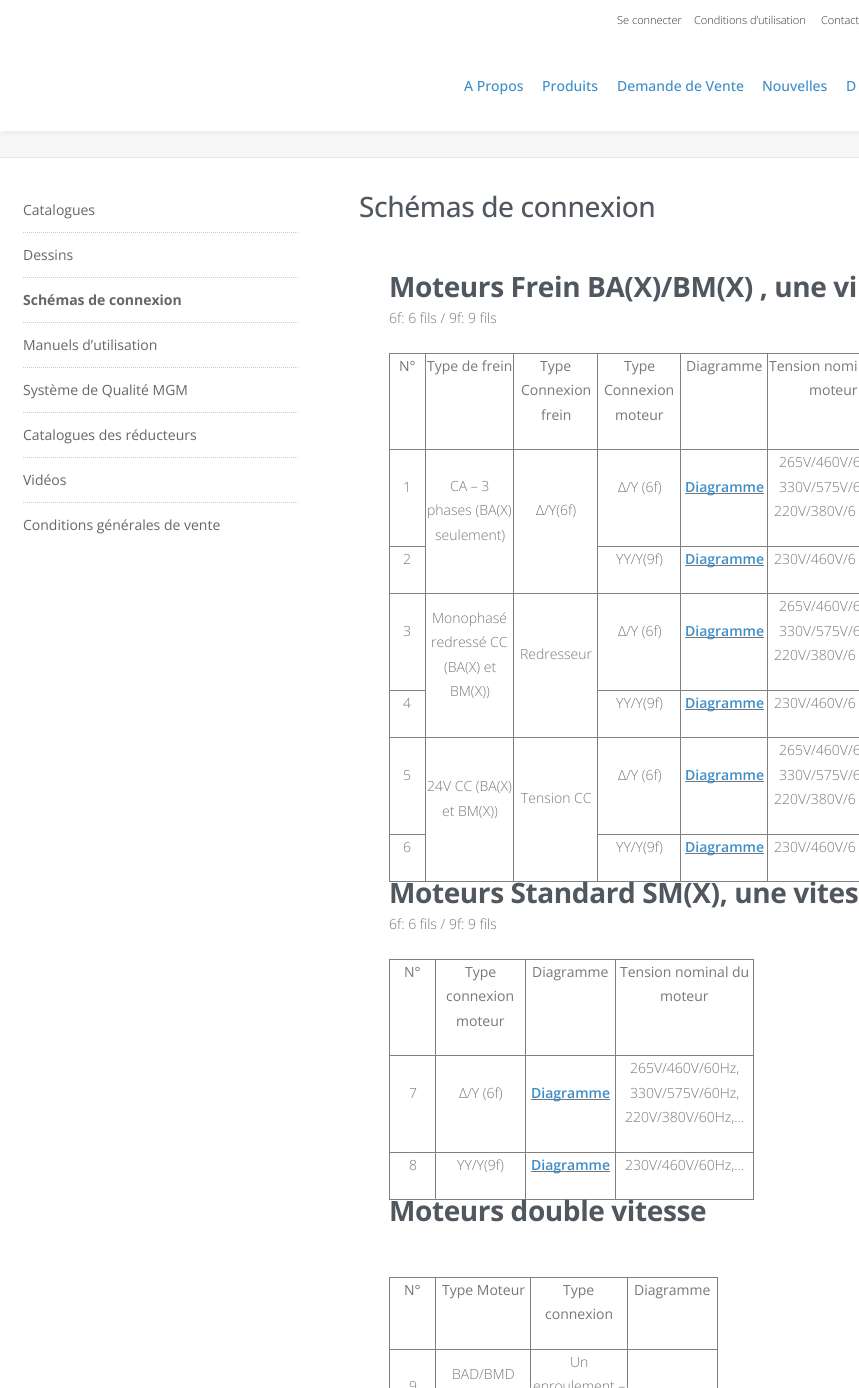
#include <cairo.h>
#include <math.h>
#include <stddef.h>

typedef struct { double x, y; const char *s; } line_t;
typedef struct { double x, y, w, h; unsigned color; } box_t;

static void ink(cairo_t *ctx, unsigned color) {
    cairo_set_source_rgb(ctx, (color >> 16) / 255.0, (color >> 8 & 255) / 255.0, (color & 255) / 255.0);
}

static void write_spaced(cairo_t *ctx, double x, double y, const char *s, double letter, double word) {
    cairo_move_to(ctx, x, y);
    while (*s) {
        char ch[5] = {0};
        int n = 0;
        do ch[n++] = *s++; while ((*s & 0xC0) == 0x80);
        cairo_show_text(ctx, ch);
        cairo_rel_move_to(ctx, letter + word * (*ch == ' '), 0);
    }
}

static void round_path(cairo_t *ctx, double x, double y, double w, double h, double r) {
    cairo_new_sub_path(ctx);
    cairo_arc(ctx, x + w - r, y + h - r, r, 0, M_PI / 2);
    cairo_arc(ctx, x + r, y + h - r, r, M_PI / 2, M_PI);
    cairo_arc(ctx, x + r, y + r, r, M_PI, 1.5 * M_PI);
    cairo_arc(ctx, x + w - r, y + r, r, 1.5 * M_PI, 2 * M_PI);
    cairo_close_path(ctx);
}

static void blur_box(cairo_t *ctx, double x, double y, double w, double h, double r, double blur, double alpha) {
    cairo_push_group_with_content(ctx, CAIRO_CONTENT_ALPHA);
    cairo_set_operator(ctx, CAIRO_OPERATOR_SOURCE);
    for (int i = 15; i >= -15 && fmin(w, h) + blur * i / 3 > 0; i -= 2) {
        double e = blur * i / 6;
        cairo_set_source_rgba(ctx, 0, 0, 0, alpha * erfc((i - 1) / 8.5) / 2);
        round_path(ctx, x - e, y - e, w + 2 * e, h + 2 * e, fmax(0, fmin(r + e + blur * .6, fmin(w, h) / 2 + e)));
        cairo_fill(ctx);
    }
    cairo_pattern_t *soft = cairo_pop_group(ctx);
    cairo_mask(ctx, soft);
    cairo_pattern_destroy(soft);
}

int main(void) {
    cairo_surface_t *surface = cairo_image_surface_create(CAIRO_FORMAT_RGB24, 859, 1388);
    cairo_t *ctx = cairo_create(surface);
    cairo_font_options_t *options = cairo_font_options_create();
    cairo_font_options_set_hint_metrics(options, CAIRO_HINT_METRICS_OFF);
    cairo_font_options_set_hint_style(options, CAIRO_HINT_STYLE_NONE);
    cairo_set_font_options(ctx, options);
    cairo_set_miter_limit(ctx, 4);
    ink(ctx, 0xF7F7F7);
    cairo_paint(ctx);
    ink(ctx, 0x000000);
    blur_box(ctx, 3, 8, 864, 125, 0, 2.5, 0.06);
    ink(ctx, 0xFFFFFF);
    cairo_rectangle(ctx, 0, 0, 859, 131);
    cairo_fill(ctx);
    cairo_select_font_face(ctx, "Open Sans Light", CAIRO_FONT_SLANT_NORMAL, CAIRO_FONT_WEIGHT_NORMAL);
    cairo_set_font_size(ctx, 11);
    ink(ctx, 0x333333);
    {
        static const line_t items[] = {
            {617, 24, "Se connecter"},
            {694, 24, "Conditions d’utilisation"},
            {821, 24, "Contact"},
        };
        for (size_t i = 0; i < sizeof items / sizeof *items; i++) {
            cairo_move_to(ctx, items[i].x, items[i].y);
            cairo_show_text(ctx, items[i].s);
        }
    }
    cairo_select_font_face(ctx, "Open Sans Medium", CAIRO_FONT_SLANT_NORMAL, CAIRO_FONT_WEIGHT_NORMAL);
    cairo_set_font_size(ctx, 14);
    ink(ctx, 0x3D8DC8);
    {
        static const line_t items[] = {
            {464, 91, "A Propos"},
            {542, 91, "Produits"},
            {617, 91, "Demande de Vente"},
            {762, 91, "Nouvelles"},
            {846, 91, "D"},
        };
        for (size_t i = 0; i < sizeof items / sizeof *items; i++) {
            cairo_move_to(ctx, items[i].x, items[i].y);
            cairo_show_text(ctx, items[i].s);
        }
    }
    ink(ctx, 0xE7E7E7);
    cairo_rectangle(ctx, 0, 157, 859, 1);
    cairo_fill(ctx);
    ink(ctx, 0xFFFFFF);
    cairo_rectangle(ctx, 0, 158, 859, 1230);
    cairo_fill(ctx);
    cairo_new_path(ctx);
    cairo_move_to(ctx, 23, 232.5);
    cairo_line_to(ctx, 299, 232.5);
    ink(ctx, 0xCCCCCC);
    cairo_set_line_width(ctx, 1);
    cairo_set_dash(ctx, (double[]){1, 1}, 2, 0);
    cairo_stroke(ctx);
    cairo_select_font_face(ctx, "Open Sans", CAIRO_FONT_SLANT_NORMAL, CAIRO_FONT_WEIGHT_NORMAL);
    ink(ctx, 0x666666);
    cairo_move_to(ctx, 23, 215);
    cairo_show_text(ctx, "Catalogues");
    cairo_new_path(ctx);
    cairo_move_to(ctx, 23, 277.5);
    cairo_line_to(ctx, 299, 277.5);
    ink(ctx, 0xCCCCCC);
    cairo_stroke(ctx);
    ink(ctx, 0x666666);
    cairo_move_to(ctx, 23, 260);
    cairo_show_text(ctx, "Dessins");
    cairo_new_path(ctx);
    cairo_move_to(ctx, 23, 322.5);
    cairo_line_to(ctx, 299, 322.5);
    ink(ctx, 0xCCCCCC);
    cairo_stroke(ctx);
    cairo_select_font_face(ctx, "Open Sans", CAIRO_FONT_SLANT_NORMAL, CAIRO_FONT_WEIGHT_BOLD);
    ink(ctx, 0x666666);
    cairo_move_to(ctx, 23, 305);
    cairo_show_text(ctx, "Schémas de connexion");
    cairo_new_path(ctx);
    cairo_move_to(ctx, 23, 367.5);
    cairo_line_to(ctx, 299, 367.5);
    ink(ctx, 0xCCCCCC);
    cairo_stroke(ctx);
    cairo_select_font_face(ctx, "Open Sans", CAIRO_FONT_SLANT_NORMAL, CAIRO_FONT_WEIGHT_NORMAL);
    ink(ctx, 0x666666);
    cairo_move_to(ctx, 23, 350);
    cairo_show_text(ctx, "Manuels d’utilisation");
    cairo_new_path(ctx);
    cairo_move_to(ctx, 23, 412.5);
    cairo_line_to(ctx, 299, 412.5);
    ink(ctx, 0xCCCCCC);
    cairo_stroke(ctx);
    ink(ctx, 0x666666);
    cairo_move_to(ctx, 23, 395);
    cairo_show_text(ctx, "Système de Qualité MGM");
    cairo_new_path(ctx);
    cairo_move_to(ctx, 23, 457.5);
    cairo_line_to(ctx, 299, 457.5);
    ink(ctx, 0xCCCCCC);
    cairo_stroke(ctx);
    ink(ctx, 0x666666);
    cairo_move_to(ctx, 23, 440);
    cairo_show_text(ctx, "Catalogues des réducteurs");
    cairo_new_path(ctx);
    cairo_move_to(ctx, 23, 502.5);
    cairo_line_to(ctx, 299, 502.5);
    ink(ctx, 0xCCCCCC);
    cairo_stroke(ctx);
    ink(ctx, 0x666666);
    cairo_move_to(ctx, 23, 485);
    cairo_show_text(ctx, "Vidéos");
    cairo_move_to(ctx, 23, 530);
    cairo_show_text(ctx, "Conditions générales de vente");
    cairo_select_font_face(ctx, "Open Sans Medium", CAIRO_FONT_SLANT_NORMAL, CAIRO_FONT_WEIGHT_NORMAL);
    cairo_set_font_size(ctx, 28);
    ink(ctx, 0x50575E);
    write_spaced(ctx, 359, 217, "Schémas de connexion", -0.4, 0);
    cairo_select_font_face(ctx, "Open Sans", CAIRO_FONT_SLANT_NORMAL, CAIRO_FONT_WEIGHT_BOLD);
    write_spaced(ctx, 389, 297, "Moteurs Frein BA(X)/BM(X) , une vi", -0.4, 0);
    cairo_select_font_face(ctx, "Open Sans Light", CAIRO_FONT_SLANT_NORMAL, CAIRO_FONT_WEIGHT_NORMAL);
    cairo_set_font_size(ctx, 14);
    ink(ctx, 0x777777);
    cairo_move_to(ctx, 389, 323);
    cairo_show_text(ctx, "6f: 6 fils / 9f: 9 fils");
    {
        static const box_t items[] = {
            {389, 353, 470, 1, 0x808080},
            {389, 881, 470, 1, 0x808080},
            {389, 353, 1, 529, 0x808080},
        };
        for (size_t i = 0; i < sizeof items / sizeof *items; i++) {
            ink(ctx, items[i].color);
            cairo_rectangle(ctx, items[i].x, items[i].y, items[i].w, items[i].h);
            cairo_fill(ctx);
        }
    }
    cairo_select_font_face(ctx, "Open Sans", CAIRO_FONT_SLANT_NORMAL, CAIRO_FONT_WEIGHT_NORMAL);
    ink(ctx, 0x777777);
    cairo_move_to(ctx, 399, 371);
    cairo_show_text(ctx, "N°");
    {
        static const box_t items[] = {
            {767, 449, 92, 1, 0x808080},
            {767, 546, 92, 1, 0x808080},
            {767, 593, 92, 1, 0x808080},
            {767, 690, 92, 1, 0x808080},
            {767, 737, 92, 1, 0x808080},
            {767, 834, 92, 1, 0x808080},
            {767, 834, 1, 48, 0x808080},
            {680, 834, 88, 1, 0x808080},
            {767, 737, 1, 98, 0x808080},
            {680, 737, 88, 1, 0x808080},
            {767, 690, 1, 48, 0x808080},
            {680, 690, 88, 1, 0x808080},
            {767, 593, 1, 98, 0x808080},
            {680, 593, 88, 1, 0x808080},
            {767, 546, 1, 48, 0x808080},
            {680, 546, 88, 1, 0x808080},
            {767, 449, 1, 98, 0x808080},
            {680, 449, 88, 1, 0x808080},
            {680, 834, 1, 48, 0x808080},
            {597, 834, 84, 1, 0x808080},
            {680, 737, 1, 98, 0x808080},
            {597, 737, 84, 1, 0x808080},
            {680, 690, 1, 48, 0x808080},
            {597, 690, 84, 1, 0x808080},
            {680, 593, 1, 98, 0x808080},
            {597, 593, 84, 1, 0x808080},
            {680, 546, 1, 48, 0x808080},
            {597, 546, 84, 1, 0x808080},
            {680, 449, 1, 98, 0x808080},
            {597, 449, 84, 1, 0x808080},
            {597, 834, 1, 48, 0x808080},
            {597, 737, 1, 98, 0x808080},
            {513, 737, 85, 1, 0x808080},
            {597, 690, 1, 48, 0x808080},
            {597, 593, 1, 98, 0x808080},
            {513, 593, 85, 1, 0x808080},
            {597, 546, 1, 48, 0x808080},
            {597, 449, 1, 98, 0x808080},
            {513, 449, 85, 1, 0x808080},
            {513, 737, 1, 145, 0x808080},
            {425, 737, 89, 1, 0x808080},
            {513, 593, 1, 145, 0x808080},
            {425, 593, 89, 1, 0x808080},
            {513, 449, 1, 145, 0x808080},
            {425, 449, 89, 1, 0x808080},
            {389, 546, 37, 1, 0x808080},
            {389, 690, 37, 1, 0x808080},
            {389, 834, 37, 1, 0x808080},
            {425, 737, 1, 145, 0x808080},
            {389, 737, 37, 1, 0x808080},
            {425, 593, 1, 145, 0x808080},
            {389, 593, 37, 1, 0x808080},
            {425, 449, 1, 145, 0x808080},
            {389, 449, 37, 1, 0x808080},
            {425, 353, 1, 97, 0x808080},
        };
        for (size_t i = 0; i < sizeof items / sizeof *items; i++) {
            ink(ctx, items[i].color);
            cairo_rectangle(ctx, items[i].x, items[i].y, items[i].w, items[i].h);
            cairo_fill(ctx);
        }
    }
    ink(ctx, 0x777777);
    cairo_move_to(ctx, 427, 371);
    cairo_show_text(ctx, "Type de frein");
    ink(ctx, 0x808080);
    cairo_rectangle(ctx, 513, 353, 1, 97);
    cairo_fill(ctx);
    ink(ctx, 0x777777);
    {
        static const line_t items[] = {
            {540, 371, "Type"},
            {521, 395, "Connexion"},
            {541, 420, "frein"},
        };
        for (size_t i = 0; i < sizeof items / sizeof *items; i++) {
            cairo_move_to(ctx, items[i].x, items[i].y);
            cairo_show_text(ctx, items[i].s);
        }
    }
    ink(ctx, 0x808080);
    cairo_rectangle(ctx, 597, 353, 1, 97);
    cairo_fill(ctx);
    ink(ctx, 0x777777);
    {
        static const line_t items[] = {
            {624, 371, "Type"},
            {604, 395, "Connexion"},
            {615, 420, "moteur"},
        };
        for (size_t i = 0; i < sizeof items / sizeof *items; i++) {
            cairo_move_to(ctx, items[i].x, items[i].y);
            cairo_show_text(ctx, items[i].s);
        }
    }
    ink(ctx, 0x808080);
    cairo_rectangle(ctx, 680, 353, 1, 97);
    cairo_fill(ctx);
    ink(ctx, 0x777777);
    cairo_move_to(ctx, 686, 371);
    cairo_show_text(ctx, "Diagramme");
    ink(ctx, 0x808080);
    cairo_rectangle(ctx, 767, 353, 1, 97);
    cairo_fill(ctx);
    ink(ctx, 0x777777);
    cairo_move_to(ctx, 769, 371);
    cairo_show_text(ctx, "Tension nomi");
    cairo_move_to(ctx, 809, 395);
    cairo_show_text(ctx, "moteur");
    cairo_select_font_face(ctx, "Open Sans Light", CAIRO_FONT_SLANT_NORMAL, CAIRO_FONT_WEIGHT_NORMAL);
    {
        static const line_t items[] = {
            {403, 492, "1"},
            {450, 491, "CA – 3"},
            {427, 515, "phases (BA(X)"},
            {435, 540, "seulement)"},
            {618, 492, "Δ/Y (6f)"},
        };
        for (size_t i = 0; i < sizeof items / sizeof *items; i++) {
            cairo_move_to(ctx, items[i].x, items[i].y);
            cairo_show_text(ctx, items[i].s);
        }
    }
    cairo_rectangle(ctx, 685, 493, 79, 1);
    cairo_fill(ctx);
    cairo_select_font_face(ctx, "Open Sans SemiBold", CAIRO_FONT_SLANT_NORMAL, CAIRO_FONT_WEIGHT_NORMAL);
    ink(ctx, 0x3D8DC8);
    cairo_move_to(ctx, 685, 492);
    cairo_show_text(ctx, "Diagramme");
    cairo_select_font_face(ctx, "Open Sans Light", CAIRO_FONT_SLANT_NORMAL, CAIRO_FONT_WEIGHT_NORMAL);
    ink(ctx, 0x777777);
    {
        static const line_t items[] = {
            {779, 467, "265V/460V/6"},
            {779, 492, "330V/575V/6"},
            {774, 516, "220V/380V/6"},
            {536, 515, "Δ/Y(6f)"},
            {403, 564, "2"},
            {616, 564, "YY/Y(9f)"},
        };
        for (size_t i = 0; i < sizeof items / sizeof *items; i++) {
            cairo_move_to(ctx, items[i].x, items[i].y);
            cairo_show_text(ctx, items[i].s);
        }
    }
    cairo_rectangle(ctx, 685, 565, 79, 1);
    cairo_fill(ctx);
    cairo_select_font_face(ctx, "Open Sans SemiBold", CAIRO_FONT_SLANT_NORMAL, CAIRO_FONT_WEIGHT_NORMAL);
    ink(ctx, 0x3D8DC8);
    cairo_move_to(ctx, 685, 564);
    cairo_show_text(ctx, "Diagramme");
    cairo_select_font_face(ctx, "Open Sans Light", CAIRO_FONT_SLANT_NORMAL, CAIRO_FONT_WEIGHT_NORMAL);
    ink(ctx, 0x777777);
    {
        static const line_t items[] = {
            {774, 564, "230V/460V/6"},
            {403, 636, "3"},
            {432, 623, "Monophasé"},
            {431, 647, "redressé CC"},
            {444, 672, "(BA(X) et"},
            {450, 696, "BM(X))"},
            {618, 636, "Δ/Y (6f)"},
        };
        for (size_t i = 0; i < sizeof items / sizeof *items; i++) {
            cairo_move_to(ctx, items[i].x, items[i].y);
            cairo_show_text(ctx, items[i].s);
        }
    }
    cairo_rectangle(ctx, 685, 637, 79, 1);
    cairo_fill(ctx);
    cairo_select_font_face(ctx, "Open Sans SemiBold", CAIRO_FONT_SLANT_NORMAL, CAIRO_FONT_WEIGHT_NORMAL);
    ink(ctx, 0x3D8DC8);
    cairo_move_to(ctx, 685, 636);
    cairo_show_text(ctx, "Diagramme");
    cairo_select_font_face(ctx, "Open Sans Light", CAIRO_FONT_SLANT_NORMAL, CAIRO_FONT_WEIGHT_NORMAL);
    ink(ctx, 0x777777);
    {
        static const line_t items[] = {
            {779, 611, "265V/460V/6"},
            {779, 636, "330V/575V/6"},
            {774, 660, "220V/380V/6"},
            {520, 659, "Redresseur"},
            {403, 708, "4"},
            {616, 708, "YY/Y(9f)"},
        };
        for (size_t i = 0; i < sizeof items / sizeof *items; i++) {
            cairo_move_to(ctx, items[i].x, items[i].y);
            cairo_show_text(ctx, items[i].s);
        }
    }
    cairo_rectangle(ctx, 685, 709, 79, 1);
    cairo_fill(ctx);
    cairo_select_font_face(ctx, "Open Sans SemiBold", CAIRO_FONT_SLANT_NORMAL, CAIRO_FONT_WEIGHT_NORMAL);
    ink(ctx, 0x3D8DC8);
    cairo_move_to(ctx, 685, 708);
    cairo_show_text(ctx, "Diagramme");
    cairo_select_font_face(ctx, "Open Sans Light", CAIRO_FONT_SLANT_NORMAL, CAIRO_FONT_WEIGHT_NORMAL);
    ink(ctx, 0x777777);
    {
        static const line_t items[] = {
            {774, 708, "230V/460V/6"},
            {403, 780, "5"},
            {618, 780, "Δ/Y (6f)"},
        };
        for (size_t i = 0; i < sizeof items / sizeof *items; i++) {
            cairo_move_to(ctx, items[i].x, items[i].y);
            cairo_show_text(ctx, items[i].s);
        }
    }
    cairo_rectangle(ctx, 685, 781, 79, 1);
    cairo_fill(ctx);
    cairo_select_font_face(ctx, "Open Sans SemiBold", CAIRO_FONT_SLANT_NORMAL, CAIRO_FONT_WEIGHT_NORMAL);
    ink(ctx, 0x3D8DC8);
    cairo_move_to(ctx, 685, 780);
    cairo_show_text(ctx, "Diagramme");
    cairo_select_font_face(ctx, "Open Sans Light", CAIRO_FONT_SLANT_NORMAL, CAIRO_FONT_WEIGHT_NORMAL);
    ink(ctx, 0x777777);
    {
        static const line_t items[] = {
            {779, 755, "265V/460V/6"},
            {779, 780, "330V/575V/6"},
            {774, 804, "220V/380V/6"},
            {427, 791, "24V CC (BA(X)"},
            {442, 816, "et BM(X))"},
            {521, 803, "Tension CC"},
            {403, 852, "6"},
            {616, 852, "YY/Y(9f)"},
        };
        for (size_t i = 0; i < sizeof items / sizeof *items; i++) {
            cairo_move_to(ctx, items[i].x, items[i].y);
            cairo_show_text(ctx, items[i].s);
        }
    }
    cairo_rectangle(ctx, 685, 853, 79, 1);
    cairo_fill(ctx);
    cairo_select_font_face(ctx, "Open Sans SemiBold", CAIRO_FONT_SLANT_NORMAL, CAIRO_FONT_WEIGHT_NORMAL);
    ink(ctx, 0x3D8DC8);
    cairo_move_to(ctx, 685, 852);
    cairo_show_text(ctx, "Diagramme");
    cairo_select_font_face(ctx, "Open Sans Light", CAIRO_FONT_SLANT_NORMAL, CAIRO_FONT_WEIGHT_NORMAL);
    ink(ctx, 0x777777);
    cairo_move_to(ctx, 774, 852);
    cairo_show_text(ctx, "230V/460V/6");
    cairo_select_font_face(ctx, "Open Sans", CAIRO_FONT_SLANT_NORMAL, CAIRO_FONT_WEIGHT_BOLD);
    cairo_set_font_size(ctx, 28);
    ink(ctx, 0x50575E);
    write_spaced(ctx, 389, 903, "Moteurs Standard SM(X), une vites", -0.4, 0);
    cairo_select_font_face(ctx, "Open Sans Light", CAIRO_FONT_SLANT_NORMAL, CAIRO_FONT_WEIGHT_NORMAL);
    cairo_set_font_size(ctx, 14);
    ink(ctx, 0x777777);
    cairo_move_to(ctx, 389, 929);
    cairo_show_text(ctx, "6f: 6 fils / 9f: 9 fils");
    {
        static const box_t items[] = {
            {389, 959, 365, 1, 0x808080},
            {753, 959, 1, 241, 0x808080},
            {389, 1199, 365, 1, 0x808080},
            {389, 959, 1, 241, 0x808080},
        };
        for (size_t i = 0; i < sizeof items / sizeof *items; i++) {
            ink(ctx, items[i].color);
            cairo_rectangle(ctx, items[i].x, items[i].y, items[i].w, items[i].h);
            cairo_fill(ctx);
        }
    }
    cairo_select_font_face(ctx, "Open Sans", CAIRO_FONT_SLANT_NORMAL, CAIRO_FONT_WEIGHT_NORMAL);
    ink(ctx, 0x777777);
    cairo_move_to(ctx, 404, 977);
    cairo_show_text(ctx, "N°");
    {
        static const box_t items[] = {
            {615, 1055, 139, 1, 0x808080},
            {615, 1152, 139, 1, 0x808080},
            {615, 1152, 1, 48, 0x808080},
            {525, 1152, 91, 1, 0x808080},
            {615, 1055, 1, 98, 0x808080},
            {525, 1055, 91, 1, 0x808080},
            {525, 1152, 1, 48, 0x808080},
            {435, 1152, 91, 1, 0x808080},
            {525, 1055, 1, 98, 0x808080},
            {435, 1055, 91, 1, 0x808080},
            {435, 1152, 1, 48, 0x808080},
            {389, 1152, 47, 1, 0x808080},
            {435, 1055, 1, 98, 0x808080},
            {389, 1055, 47, 1, 0x808080},
            {435, 959, 1, 97, 0x808080},
        };
        for (size_t i = 0; i < sizeof items / sizeof *items; i++) {
            ink(ctx, items[i].color);
            cairo_rectangle(ctx, items[i].x, items[i].y, items[i].w, items[i].h);
            cairo_fill(ctx);
        }
    }
    ink(ctx, 0x777777);
    {
        static const line_t items[] = {
            {465, 977, "Type"},
            {446, 1001, "connexion"},
            {456, 1026, "moteur"},
        };
        for (size_t i = 0; i < sizeof items / sizeof *items; i++) {
            cairo_move_to(ctx, items[i].x, items[i].y);
            cairo_show_text(ctx, items[i].s);
        }
    }
    ink(ctx, 0x808080);
    cairo_rectangle(ctx, 525, 959, 1, 97);
    cairo_fill(ctx);
    ink(ctx, 0x777777);
    cairo_move_to(ctx, 532, 977);
    cairo_show_text(ctx, "Diagramme");
    ink(ctx, 0x808080);
    cairo_rectangle(ctx, 615, 959, 1, 97);
    cairo_fill(ctx);
    ink(ctx, 0x777777);
    cairo_move_to(ctx, 620, 977);
    cairo_show_text(ctx, "Tension nominal du");
    cairo_move_to(ctx, 660, 1001);
    cairo_show_text(ctx, "moteur");
    cairo_select_font_face(ctx, "Open Sans Light", CAIRO_FONT_SLANT_NORMAL, CAIRO_FONT_WEIGHT_NORMAL);
    cairo_move_to(ctx, 409, 1098);
    cairo_show_text(ctx, "7");
    cairo_move_to(ctx, 459, 1098);
    cairo_show_text(ctx, "Δ/Y (6f)");
    cairo_rectangle(ctx, 531, 1099, 79, 1);
    cairo_fill(ctx);
    cairo_select_font_face(ctx, "Open Sans SemiBold", CAIRO_FONT_SLANT_NORMAL, CAIRO_FONT_WEIGHT_NORMAL);
    ink(ctx, 0x3D8DC8);
    cairo_move_to(ctx, 531, 1098);
    cairo_show_text(ctx, "Diagramme");
    cairo_select_font_face(ctx, "Open Sans Light", CAIRO_FONT_SLANT_NORMAL, CAIRO_FONT_WEIGHT_NORMAL);
    ink(ctx, 0x777777);
    {
        static const line_t items[] = {
            {630, 1073, "265V/460V/60Hz,"},
            {630, 1098, "330V/575V/60Hz,"},
            {625, 1122, "220V/380V/60Hz,…"},
            {409, 1170, "8"},
            {457, 1170, "YY/Y(9f)"},
        };
        for (size_t i = 0; i < sizeof items / sizeof *items; i++) {
            cairo_move_to(ctx, items[i].x, items[i].y);
            cairo_show_text(ctx, items[i].s);
        }
    }
    cairo_rectangle(ctx, 531, 1171, 79, 1);
    cairo_fill(ctx);
    cairo_select_font_face(ctx, "Open Sans SemiBold", CAIRO_FONT_SLANT_NORMAL, CAIRO_FONT_WEIGHT_NORMAL);
    ink(ctx, 0x3D8DC8);
    cairo_move_to(ctx, 531, 1170);
    cairo_show_text(ctx, "Diagramme");
    cairo_select_font_face(ctx, "Open Sans Light", CAIRO_FONT_SLANT_NORMAL, CAIRO_FONT_WEIGHT_NORMAL);
    ink(ctx, 0x777777);
    cairo_move_to(ctx, 625, 1170);
    cairo_show_text(ctx, "230V/460V/60Hz,…");
    cairo_select_font_face(ctx, "Open Sans", CAIRO_FONT_SLANT_NORMAL, CAIRO_FONT_WEIGHT_BOLD);
    cairo_set_font_size(ctx, 28);
    ink(ctx, 0x50575E);
    write_spaced(ctx, 389, 1221, "Moteurs double vitesse", -0.4, 0);
    {
        static const box_t items[] = {
            {389, 1277, 329, 1, 0x808080},
            {717, 1277, 1, 111, 0x808080},
            {389, 1277, 1, 111, 0x808080},
        };
        for (size_t i = 0; i < sizeof items / sizeof *items; i++) {
            ink(ctx, items[i].color);
            cairo_rectangle(ctx, items[i].x, items[i].y, items[i].w, items[i].h);
            cairo_fill(ctx);
        }
    }
    cairo_select_font_face(ctx, "Open Sans", CAIRO_FONT_SLANT_NORMAL, CAIRO_FONT_WEIGHT_NORMAL);
    cairo_set_font_size(ctx, 14);
    ink(ctx, 0x777777);
    cairo_move_to(ctx, 404, 1295);
    cairo_show_text(ctx, "N°");
    {
        static const box_t items[] = {
            {627, 1349, 91, 1, 0x808080},
            {627, 1349, 1, 39, 0x808080},
            {530, 1349, 98, 1, 0x808080},
            {530, 1349, 1, 39, 0x808080},
            {435, 1349, 96, 1, 0x808080},
            {435, 1349, 1, 39, 0x808080},
            {389, 1349, 47, 1, 0x808080},
            {435, 1277, 1, 73, 0x808080},
        };
        for (size_t i = 0; i < sizeof items / sizeof *items; i++) {
            ink(ctx, items[i].color);
            cairo_rectangle(ctx, items[i].x, items[i].y, items[i].w, items[i].h);
            cairo_fill(ctx);
        }
    }
    ink(ctx, 0x777777);
    cairo_move_to(ctx, 442, 1295);
    cairo_show_text(ctx, "Type Moteur");
    ink(ctx, 0x808080);
    cairo_rectangle(ctx, 530, 1277, 1, 73);
    cairo_fill(ctx);
    ink(ctx, 0x777777);
    cairo_move_to(ctx, 563, 1295);
    cairo_show_text(ctx, "Type");
    cairo_move_to(ctx, 545, 1319);
    cairo_show_text(ctx, "connexion");
    ink(ctx, 0x808080);
    cairo_rectangle(ctx, 627, 1277, 1, 73);
    cairo_fill(ctx);
    ink(ctx, 0x777777);
    cairo_move_to(ctx, 634, 1295);
    cairo_show_text(ctx, "Diagramme");
    cairo_select_font_face(ctx, "Open Sans Light", CAIRO_FONT_SLANT_NORMAL, CAIRO_FONT_WEIGHT_NORMAL);
    {
        static const line_t items[] = {
            {452, 1379, "BAD/BMD"},
            {570, 1367, "Un"},
            {533, 1391, "enroulement –"},
            {409, 1391, "9"},
        };
        for (size_t i = 0; i < sizeof items / sizeof *items; i++) {
            cairo_move_to(ctx, items[i].x, items[i].y);
            cairo_show_text(ctx, items[i].s);
        }
    }
    cairo_surface_write_to_png(surface, "image.png");
    cairo_font_options_destroy(options);
    cairo_destroy(ctx);
    cairo_surface_destroy(surface);
    return 0;
}
